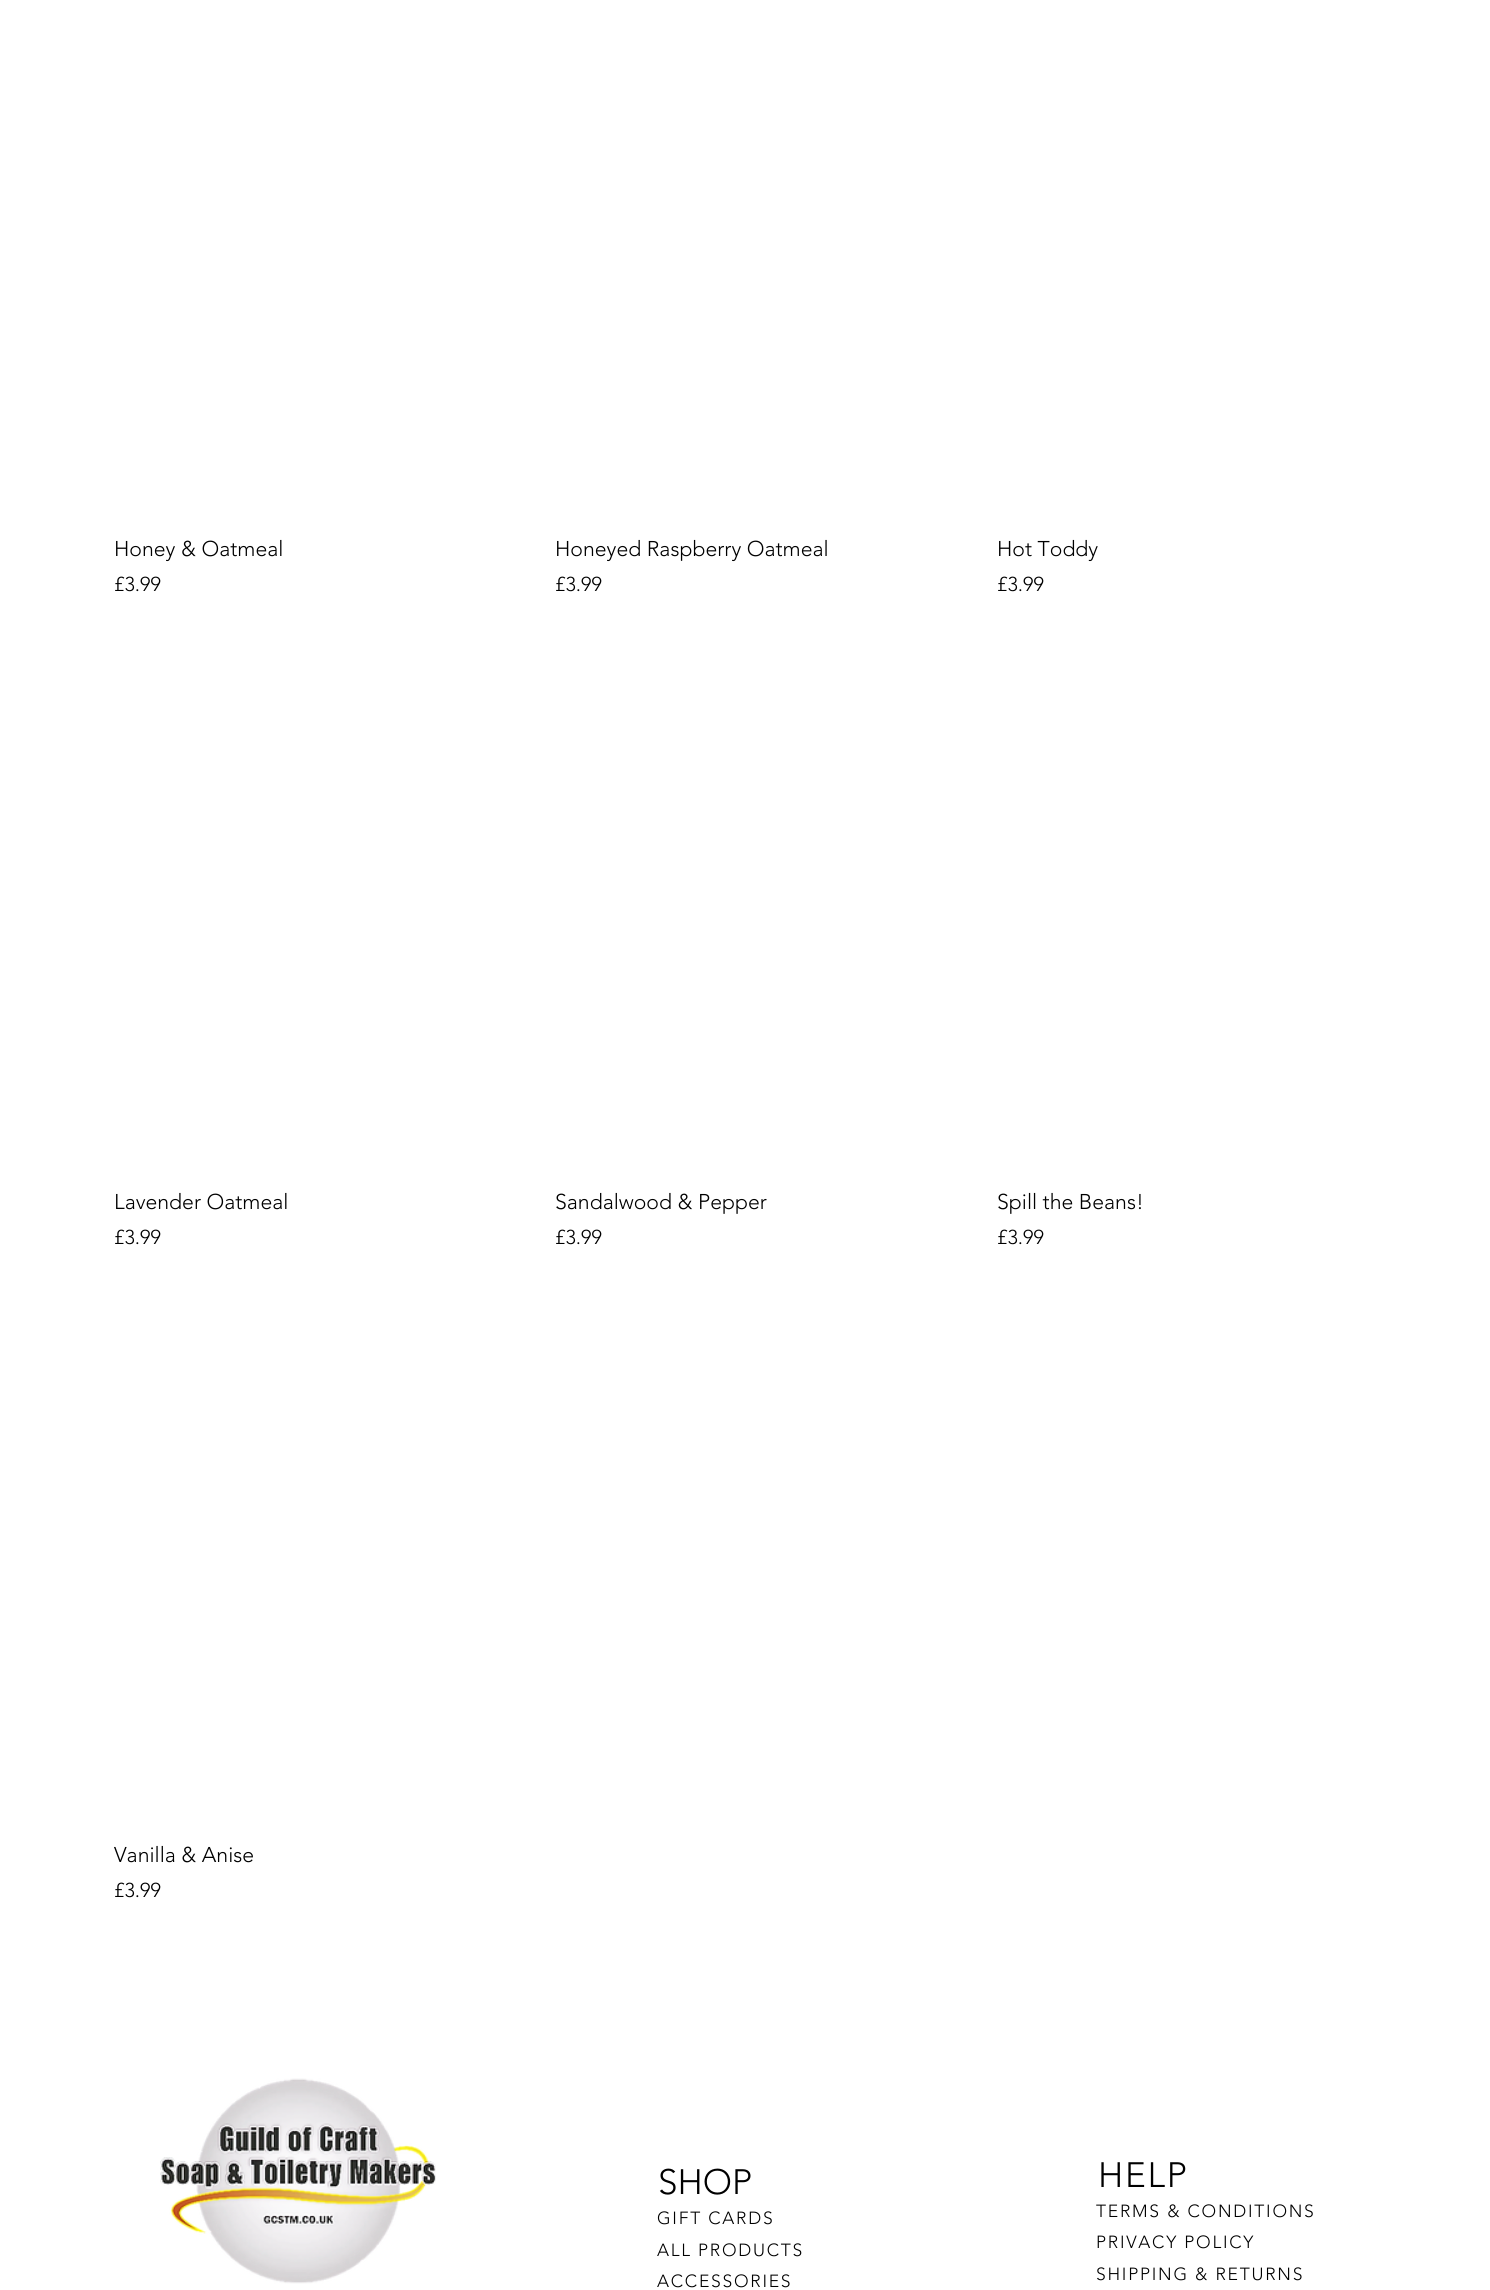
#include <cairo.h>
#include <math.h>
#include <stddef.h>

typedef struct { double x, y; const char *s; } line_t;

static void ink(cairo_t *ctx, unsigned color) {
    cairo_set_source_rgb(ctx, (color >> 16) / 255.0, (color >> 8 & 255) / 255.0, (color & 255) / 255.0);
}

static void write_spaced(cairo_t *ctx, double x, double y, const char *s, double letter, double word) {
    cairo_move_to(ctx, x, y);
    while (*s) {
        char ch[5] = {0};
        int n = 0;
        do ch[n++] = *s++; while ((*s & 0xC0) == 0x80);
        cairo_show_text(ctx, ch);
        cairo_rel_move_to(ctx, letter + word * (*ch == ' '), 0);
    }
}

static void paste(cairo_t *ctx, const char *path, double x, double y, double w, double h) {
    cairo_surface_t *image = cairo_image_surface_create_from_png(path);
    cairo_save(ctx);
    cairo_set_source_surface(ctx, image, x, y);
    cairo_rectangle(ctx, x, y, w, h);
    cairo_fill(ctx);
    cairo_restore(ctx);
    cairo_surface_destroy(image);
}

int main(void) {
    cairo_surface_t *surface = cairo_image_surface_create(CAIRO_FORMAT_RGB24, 1490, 2290);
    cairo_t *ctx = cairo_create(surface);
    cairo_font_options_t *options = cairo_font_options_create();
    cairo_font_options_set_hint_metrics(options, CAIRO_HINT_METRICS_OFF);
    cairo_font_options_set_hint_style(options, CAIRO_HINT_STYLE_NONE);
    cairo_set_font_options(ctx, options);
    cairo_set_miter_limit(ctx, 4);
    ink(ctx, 0xFFFFFF);
    cairo_paint(ctx);
    cairo_select_font_face(ctx, "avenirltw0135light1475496 Light", CAIRO_FONT_SLANT_NORMAL, CAIRO_FONT_WEIGHT_NORMAL);
    cairo_set_font_size(ctx, 21.25);
    ink(ctx, 0x000000);
    cairo_move_to(ctx, 114, 556);
    cairo_show_text(ctx, "Honey & Oatmeal");
    cairo_set_font_size(ctx, 20);
    cairo_move_to(ctx, 114, 591);
    cairo_show_text(ctx, "£3.99");
    cairo_set_font_size(ctx, 21.25);
    cairo_move_to(ctx, 555, 556);
    cairo_show_text(ctx, "Honeyed Raspberry Oatmeal");
    cairo_set_font_size(ctx, 20);
    cairo_move_to(ctx, 555, 591);
    cairo_show_text(ctx, "£3.99");
    cairo_set_font_size(ctx, 21.25);
    cairo_move_to(ctx, 997, 556);
    cairo_show_text(ctx, "Hot Toddy");
    cairo_set_font_size(ctx, 20);
    cairo_move_to(ctx, 997, 591);
    cairo_show_text(ctx, "£3.99");
    cairo_set_font_size(ctx, 21.25);
    cairo_move_to(ctx, 114, 1209);
    cairo_show_text(ctx, "Lavender Oatmeal");
    cairo_set_font_size(ctx, 20);
    cairo_move_to(ctx, 114, 1244);
    cairo_show_text(ctx, "£3.99");
    cairo_set_font_size(ctx, 21.25);
    cairo_move_to(ctx, 555, 1209);
    cairo_show_text(ctx, "Sandalwood & Pepper");
    cairo_set_font_size(ctx, 20);
    cairo_move_to(ctx, 555, 1244);
    cairo_show_text(ctx, "£3.99");
    cairo_set_font_size(ctx, 21.25);
    cairo_move_to(ctx, 997, 1209);
    cairo_show_text(ctx, "Spill the Beans!");
    cairo_set_font_size(ctx, 20);
    cairo_move_to(ctx, 997, 1244);
    cairo_show_text(ctx, "£3.99");
    cairo_set_font_size(ctx, 21.25);
    cairo_move_to(ctx, 114, 1862);
    cairo_show_text(ctx, "Vanilla & Anise");
    cairo_set_font_size(ctx, 20);
    cairo_move_to(ctx, 114, 1897);
    cairo_show_text(ctx, "£3.99");
    paste(ctx, "media/1.png", 160, 2078, 276, 206);
    cairo_set_font_size(ctx, 35);
    cairo_move_to(ctx, 658, 2194);
    cairo_show_text(ctx, "SHOP");
    cairo_set_font_size(ctx, 17.5);
    {
        static const line_t items[] = {
            {657, 2224, "GIFT CARDS"},
            {657, 2256, "ALL PRODUCTS"},
            {657, 2287, "ACCESSORIES"},
        };
        for (size_t i = 0; i < sizeof items / sizeof *items; i++) {
            write_spaced(ctx, items[i].x, items[i].y, items[i].s, 1.75, 0);
        }
    }
    cairo_set_font_size(ctx, 35);
    write_spaced(ctx, 1098, 2187, "HELP", 1.75, 0);
    cairo_set_font_size(ctx, 17.5);
    {
        static const line_t items[] = {
            {1096, 2217, "TERMS & CONDITIONS"},
            {1096, 2248, "PRIVACY POLICY"},
            {1096, 2280, "SHIPPING & RETURNS"},
        };
        for (size_t i = 0; i < sizeof items / sizeof *items; i++) {
            write_spaced(ctx, items[i].x, items[i].y, items[i].s, 1.75, 0);
        }
    }
    cairo_surface_write_to_png(surface, "image.png");
    cairo_font_options_destroy(options);
    cairo_destroy(ctx);
    cairo_surface_destroy(surface);
    return 0;
}
